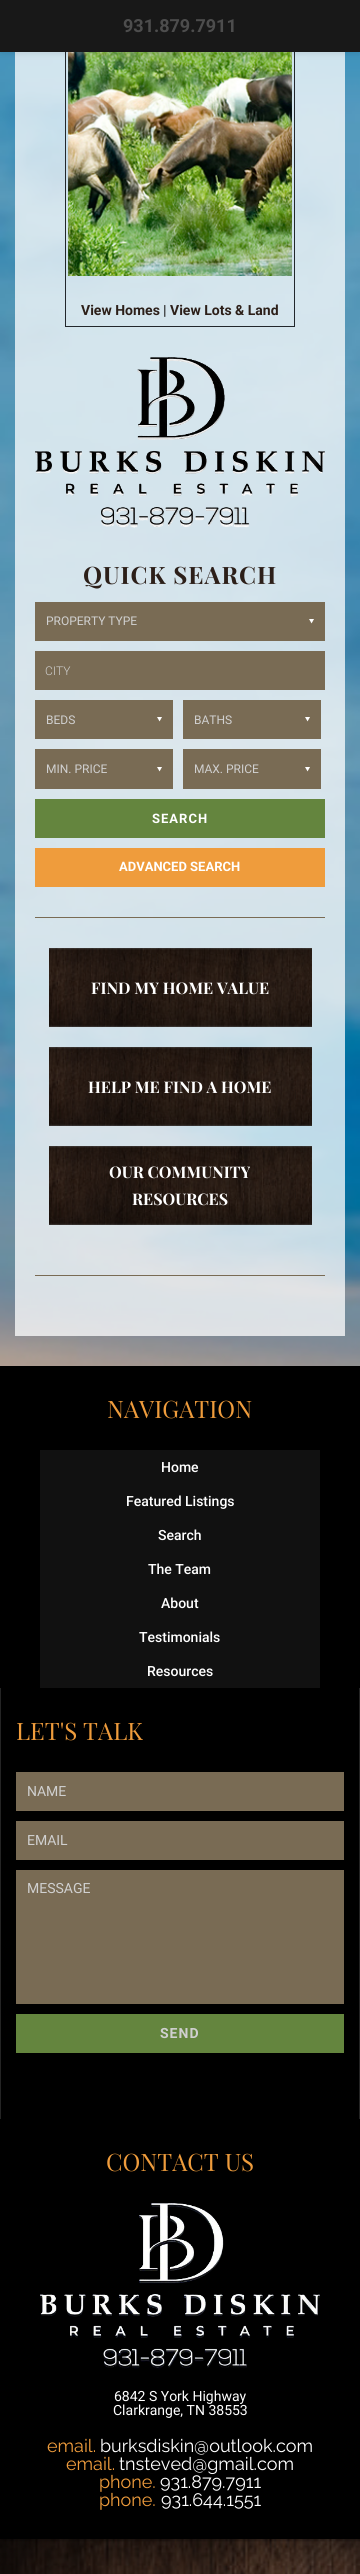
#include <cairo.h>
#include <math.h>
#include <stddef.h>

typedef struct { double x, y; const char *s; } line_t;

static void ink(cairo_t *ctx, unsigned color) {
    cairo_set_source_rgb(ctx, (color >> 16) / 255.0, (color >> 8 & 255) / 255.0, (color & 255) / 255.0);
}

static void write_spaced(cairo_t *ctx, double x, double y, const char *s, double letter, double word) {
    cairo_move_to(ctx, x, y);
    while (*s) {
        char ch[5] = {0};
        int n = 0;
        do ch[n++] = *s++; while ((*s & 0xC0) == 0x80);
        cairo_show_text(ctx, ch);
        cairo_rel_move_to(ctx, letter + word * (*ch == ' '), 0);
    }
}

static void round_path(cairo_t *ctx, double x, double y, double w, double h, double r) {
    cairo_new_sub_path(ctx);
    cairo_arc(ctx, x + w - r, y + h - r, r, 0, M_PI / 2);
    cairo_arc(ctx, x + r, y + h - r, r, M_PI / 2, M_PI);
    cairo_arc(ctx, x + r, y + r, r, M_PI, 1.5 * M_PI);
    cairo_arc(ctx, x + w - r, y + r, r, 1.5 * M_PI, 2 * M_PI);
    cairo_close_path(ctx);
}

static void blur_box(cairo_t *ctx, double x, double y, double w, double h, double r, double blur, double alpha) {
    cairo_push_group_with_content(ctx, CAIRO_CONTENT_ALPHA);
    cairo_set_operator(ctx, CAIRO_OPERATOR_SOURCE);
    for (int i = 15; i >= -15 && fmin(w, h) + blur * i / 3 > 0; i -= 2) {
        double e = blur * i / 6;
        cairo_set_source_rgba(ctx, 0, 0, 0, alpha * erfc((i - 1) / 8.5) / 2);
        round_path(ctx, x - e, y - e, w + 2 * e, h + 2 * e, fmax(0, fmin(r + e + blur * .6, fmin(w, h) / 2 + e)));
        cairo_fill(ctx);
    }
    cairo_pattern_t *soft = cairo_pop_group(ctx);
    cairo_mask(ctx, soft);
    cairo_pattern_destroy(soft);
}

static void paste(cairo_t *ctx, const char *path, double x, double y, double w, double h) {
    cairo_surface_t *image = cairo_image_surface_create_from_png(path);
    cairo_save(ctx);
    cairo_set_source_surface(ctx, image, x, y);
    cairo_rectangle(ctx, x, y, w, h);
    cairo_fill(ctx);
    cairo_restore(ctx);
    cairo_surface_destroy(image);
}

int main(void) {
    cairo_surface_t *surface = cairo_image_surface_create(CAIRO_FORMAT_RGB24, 360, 2574);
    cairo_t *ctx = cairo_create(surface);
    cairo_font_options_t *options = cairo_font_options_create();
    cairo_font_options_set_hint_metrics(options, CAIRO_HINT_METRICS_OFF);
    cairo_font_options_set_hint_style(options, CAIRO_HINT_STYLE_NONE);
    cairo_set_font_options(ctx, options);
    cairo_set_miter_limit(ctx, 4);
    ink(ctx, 0xFFFFFF);
    cairo_paint(ctx);
    paste(ctx, "media/1.png", 0, 52, 360, 1314);
    cairo_set_source_rgba(ctx, 1, 1, 1, 0.75);
    cairo_rectangle(ctx, 15, 52, 330, 1284);
    cairo_fill(ctx);
    cairo_rectangle(ctx, 65.5, -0.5, 229, 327);
    ink(ctx, 0x22272C);
    cairo_set_line_width(ctx, 1);
    cairo_stroke(ctx);
    paste(ctx, "media/2.png", 68, 52, 224, 224);
    ink(ctx, 0x000101);
    blur_box(ctx, 0, 2, 360, 52, 0, 3.5, 0.09);
    ink(ctx, 0x181818);
    cairo_rectangle(ctx, 0, 0, 360, 52);
    cairo_fill(ctx);
    cairo_select_font_face(ctx, "Roboto", CAIRO_FONT_SLANT_NORMAL, CAIRO_FONT_WEIGHT_BOLD);
    cairo_set_font_size(ctx, 18);
    ink(ctx, 0x4D4D4D);
    cairo_move_to(ctx, 123, 32);
    cairo_show_text(ctx, "931.879.7911");
    cairo_set_font_size(ctx, 14);
    ink(ctx, 0x2C1F19);
    cairo_move_to(ctx, 81, 315);
    cairo_show_text(ctx, "View Homes");
    ink(ctx, 0x2B2B2B);
    cairo_move_to(ctx, 163, 315);
    cairo_show_text(ctx, "|");
    ink(ctx, 0x2C1F19);
    cairo_move_to(ctx, 170, 315);
    cairo_show_text(ctx, "View Lots & Land");
    paste(ctx, "media/3.png", 35, 357, 290, 171);
    cairo_select_font_face(ctx, "Playfair Display", CAIRO_FONT_SLANT_NORMAL, CAIRO_FONT_WEIGHT_BOLD);
    cairo_set_font_size(ctx, 24);
    write_spaced(ctx, 83, 584, "QUICK SEARCH", 1, 0);
    ink(ctx, 0x796B54);
    cairo_rectangle(ctx, 35, 602, 290, 39);
    cairo_fill(ctx);
    paste(ctx, "media/4.png", 309, 619, 5, 5);
    cairo_select_font_face(ctx, "Roboto", CAIRO_FONT_SLANT_NORMAL, CAIRO_FONT_WEIGHT_NORMAL);
    cairo_set_font_size(ctx, 12);
    ink(ctx, 0xD0D0D0);
    cairo_move_to(ctx, 46, 625);
    cairo_show_text(ctx, "PROPERTY TYPE");
    ink(ctx, 0x796B54);
    cairo_rectangle(ctx, 35, 651, 290, 39);
    cairo_fill(ctx);
    cairo_select_font_face(ctx, "Roboto Light", CAIRO_FONT_SLANT_NORMAL, CAIRO_FONT_WEIGHT_NORMAL);
    ink(ctx, 0xD0D0D0);
    cairo_move_to(ctx, 45, 675);
    cairo_show_text(ctx, "CITY");
    ink(ctx, 0x796B54);
    cairo_rectangle(ctx, 35, 700, 138, 39);
    cairo_fill(ctx);
    paste(ctx, "media/4.png", 157, 717, 5, 5);
    cairo_select_font_face(ctx, "Roboto", CAIRO_FONT_SLANT_NORMAL, CAIRO_FONT_WEIGHT_NORMAL);
    ink(ctx, 0xD0D0D0);
    cairo_move_to(ctx, 46, 724);
    cairo_show_text(ctx, "BEDS");
    ink(ctx, 0x796B54);
    cairo_rectangle(ctx, 183, 700, 138, 39);
    cairo_fill(ctx);
    paste(ctx, "media/4.png", 305, 717, 5, 5);
    ink(ctx, 0xD0D0D0);
    cairo_move_to(ctx, 194, 724);
    cairo_show_text(ctx, "BATHS");
    ink(ctx, 0x796B54);
    cairo_rectangle(ctx, 35, 749, 138, 40);
    cairo_fill(ctx);
    paste(ctx, "media/4.png", 157, 767, 5, 5);
    ink(ctx, 0xD0D0D0);
    cairo_move_to(ctx, 46, 773);
    cairo_show_text(ctx, "MIN. PRICE");
    ink(ctx, 0x796B54);
    cairo_rectangle(ctx, 183, 749, 138, 40);
    cairo_fill(ctx);
    paste(ctx, "media/4.png", 305, 767, 5, 5);
    ink(ctx, 0xD0D0D0);
    cairo_move_to(ctx, 194, 773);
    cairo_show_text(ctx, "MAX. PRICE");
    ink(ctx, 0x64853E);
    cairo_rectangle(ctx, 35, 799, 290, 39);
    cairo_fill(ctx);
    cairo_select_font_face(ctx, "Roboto", CAIRO_FONT_SLANT_NORMAL, CAIRO_FONT_WEIGHT_BOLD);
    cairo_set_font_size(ctx, 13);
    ink(ctx, 0xFFFFFF);
    write_spaced(ctx, 152, 823, "SEARCH", 1, 0);
    ink(ctx, 0xEF9C3C);
    cairo_rectangle(ctx, 35, 848, 290, 39);
    cairo_fill(ctx);
    ink(ctx, 0xFFFFFF);
    cairo_move_to(ctx, 119, 871);
    cairo_show_text(ctx, "ADVANCED SEARCH");
    ink(ctx, 0x796B54);
    cairo_rectangle(ctx, 35, 917, 290, 1);
    cairo_fill(ctx);
    cairo_rectangle(ctx, 35, 1275, 290, 1);
    cairo_fill(ctx);
    paste(ctx, "media/5.png", 49, 948, 263, 79);
    cairo_set_source_rgba(ctx, 0, 0, 0, 0.3);
    cairo_rectangle(ctx, 49, 948, 263, 79);
    cairo_fill(ctx);
    cairo_select_font_face(ctx, "Playfair Display", CAIRO_FONT_SLANT_NORMAL, CAIRO_FONT_WEIGHT_BOLD);
    cairo_set_font_size(ctx, 16);
    ink(ctx, 0xFFFFFF);
    cairo_move_to(ctx, 91, 994);
    cairo_show_text(ctx, "FIND MY HOME VALUE");
    paste(ctx, "media/6.png", 49, 1047, 263, 79);
    cairo_set_source_rgba(ctx, 0, 0, 0, 0.3);
    cairo_rectangle(ctx, 49, 1047, 263, 79);
    cairo_fill(ctx);
    ink(ctx, 0xFFFFFF);
    cairo_move_to(ctx, 88, 1093);
    cairo_show_text(ctx, "HELP ME FIND A HOME");
    paste(ctx, "media/7.png", 49, 1146, 263, 79);
    cairo_set_source_rgba(ctx, 0, 0, 0, 0.3);
    cairo_rectangle(ctx, 49, 1146, 263, 79);
    cairo_fill(ctx);
    ink(ctx, 0xFFFFFF);
    cairo_move_to(ctx, 109, 1178);
    cairo_show_text(ctx, "OUR COMMUNITY");
    cairo_move_to(ctx, 132, 1205);
    cairo_show_text(ctx, "RESOURCES");
    ink(ctx, 0x000000);
    cairo_rectangle(ctx, 0, 1366, 360, 1176);
    cairo_fill(ctx);
    cairo_select_font_face(ctx, "Playfair Display", CAIRO_FONT_SLANT_NORMAL, CAIRO_FONT_WEIGHT_NORMAL);
    cairo_set_font_size(ctx, 24);
    ink(ctx, 0xEF9C3C);
    cairo_move_to(ctx, 107, 1418);
    cairo_show_text(ctx, "NAVIGATION");
    ink(ctx, 0x111111);
    cairo_rectangle(ctx, 40, 1450, 280, 238);
    cairo_fill(ctx);
    cairo_select_font_face(ctx, "Roboto Medium", CAIRO_FONT_SLANT_NORMAL, CAIRO_FONT_WEIGHT_NORMAL);
    cairo_set_font_size(ctx, 14);
    ink(ctx, 0xFFFFFF);
    {
        static const line_t items[] = {
            {161, 1472, "Home"},
            {126, 1506, "Featured Listings"},
            {158, 1540, "Search"},
            {148, 1574, "The Team"},
            {161, 1608, "About"},
            {139, 1642, "Testimonials"},
            {147, 1676, "Resources"},
        };
        for (size_t i = 0; i < sizeof items / sizeof *items; i++) {
            cairo_move_to(ctx, items[i].x, items[i].y);
            cairo_show_text(ctx, items[i].s);
        }
    }
    ink(ctx, 0x242424);
    cairo_rectangle(ctx, 359, 1688, 1, 431);
    cairo_fill(ctx);
    cairo_rectangle(ctx, 0, 1688, 1, 431);
    cairo_fill(ctx);
    cairo_select_font_face(ctx, "Playfair Display", CAIRO_FONT_SLANT_NORMAL, CAIRO_FONT_WEIGHT_NORMAL);
    cairo_set_font_size(ctx, 24);
    ink(ctx, 0xEF9C3C);
    cairo_move_to(ctx, 16, 1740);
    cairo_show_text(ctx, "LET'S TALK");
    ink(ctx, 0x796B54);
    cairo_rectangle(ctx, 16, 1772, 328, 39);
    cairo_fill(ctx);
    cairo_select_font_face(ctx, "Roboto", CAIRO_FONT_SLANT_NORMAL, CAIRO_FONT_WEIGHT_NORMAL);
    cairo_set_font_size(ctx, 14);
    ink(ctx, 0xD0D0D0);
    cairo_move_to(ctx, 27, 1796);
    cairo_show_text(ctx, "NAME");
    ink(ctx, 0x796B54);
    cairo_rectangle(ctx, 16, 1821, 328, 39);
    cairo_fill(ctx);
    ink(ctx, 0xD0D0D0);
    cairo_move_to(ctx, 27, 1845);
    cairo_show_text(ctx, "EMAIL");
    ink(ctx, 0x796B54);
    cairo_rectangle(ctx, 16, 1870, 328, 134);
    cairo_fill(ctx);
    ink(ctx, 0xD0D0D0);
    cairo_move_to(ctx, 27, 1893);
    cairo_show_text(ctx, "MESSAGE");
    ink(ctx, 0x64853E);
    cairo_rectangle(ctx, 16, 2014, 328, 39);
    cairo_fill(ctx);
    cairo_select_font_face(ctx, "Roboto", CAIRO_FONT_SLANT_NORMAL, CAIRO_FONT_WEIGHT_BOLD);
    ink(ctx, 0xD0D0D0);
    write_spaced(ctx, 160, 2038, "SEND", 1, 0);
    cairo_select_font_face(ctx, "Playfair Display", CAIRO_FONT_SLANT_NORMAL, CAIRO_FONT_WEIGHT_NORMAL);
    cairo_set_font_size(ctx, 24);
    ink(ctx, 0xEF9C3C);
    cairo_move_to(ctx, 106, 2171);
    cairo_show_text(ctx, "CONTACT US");
    paste(ctx, "media/8.png", 40, 2203, 280, 166);
    cairo_select_font_face(ctx, "Roboto", CAIRO_FONT_SLANT_NORMAL, CAIRO_FONT_WEIGHT_NORMAL);
    cairo_set_font_size(ctx, 14);
    ink(ctx, 0xFFFFFF);
    cairo_move_to(ctx, 114, 2401);
    cairo_show_text(ctx, "6842 S York Highway");
    cairo_move_to(ctx, 113, 2415);
    cairo_show_text(ctx, "Clarkrange, TN 38553");
    cairo_select_font_face(ctx, "Raleway Thin", CAIRO_FONT_SLANT_NORMAL, CAIRO_FONT_WEIGHT_NORMAL);
    cairo_set_font_size(ctx, 18);
    ink(ctx, 0xEF9C3C);
    cairo_move_to(ctx, 47, 2452);
    cairo_show_text(ctx, "email.");
    ink(ctx, 0xFFFFFF);
    cairo_move_to(ctx, 100, 2452);
    cairo_show_text(ctx, "burksdiskin@outlook.com");
    ink(ctx, 0xEF9C3C);
    cairo_move_to(ctx, 66, 2470);
    cairo_show_text(ctx, "email.");
    ink(ctx, 0xFFFFFF);
    cairo_move_to(ctx, 119, 2470);
    cairo_show_text(ctx, "tnsteved@gmail.com");
    ink(ctx, 0xEF9C3C);
    cairo_move_to(ctx, 99, 2488);
    cairo_show_text(ctx, "phone.");
    ink(ctx, 0xFFFFFF);
    cairo_move_to(ctx, 160, 2488);
    cairo_show_text(ctx, "931.879.7911");
    ink(ctx, 0xEF9C3C);
    cairo_move_to(ctx, 99, 2506);
    cairo_show_text(ctx, "phone.");
    ink(ctx, 0xFFFFFF);
    cairo_move_to(ctx, 161, 2506);
    cairo_show_text(ctx, "931.644.1551");
    paste(ctx, "media/9.png", 0, 2539, 360, 35);
    cairo_surface_write_to_png(surface, "image.png");
    cairo_font_options_destroy(options);
    cairo_destroy(ctx);
    cairo_surface_destroy(surface);
    return 0;
}
